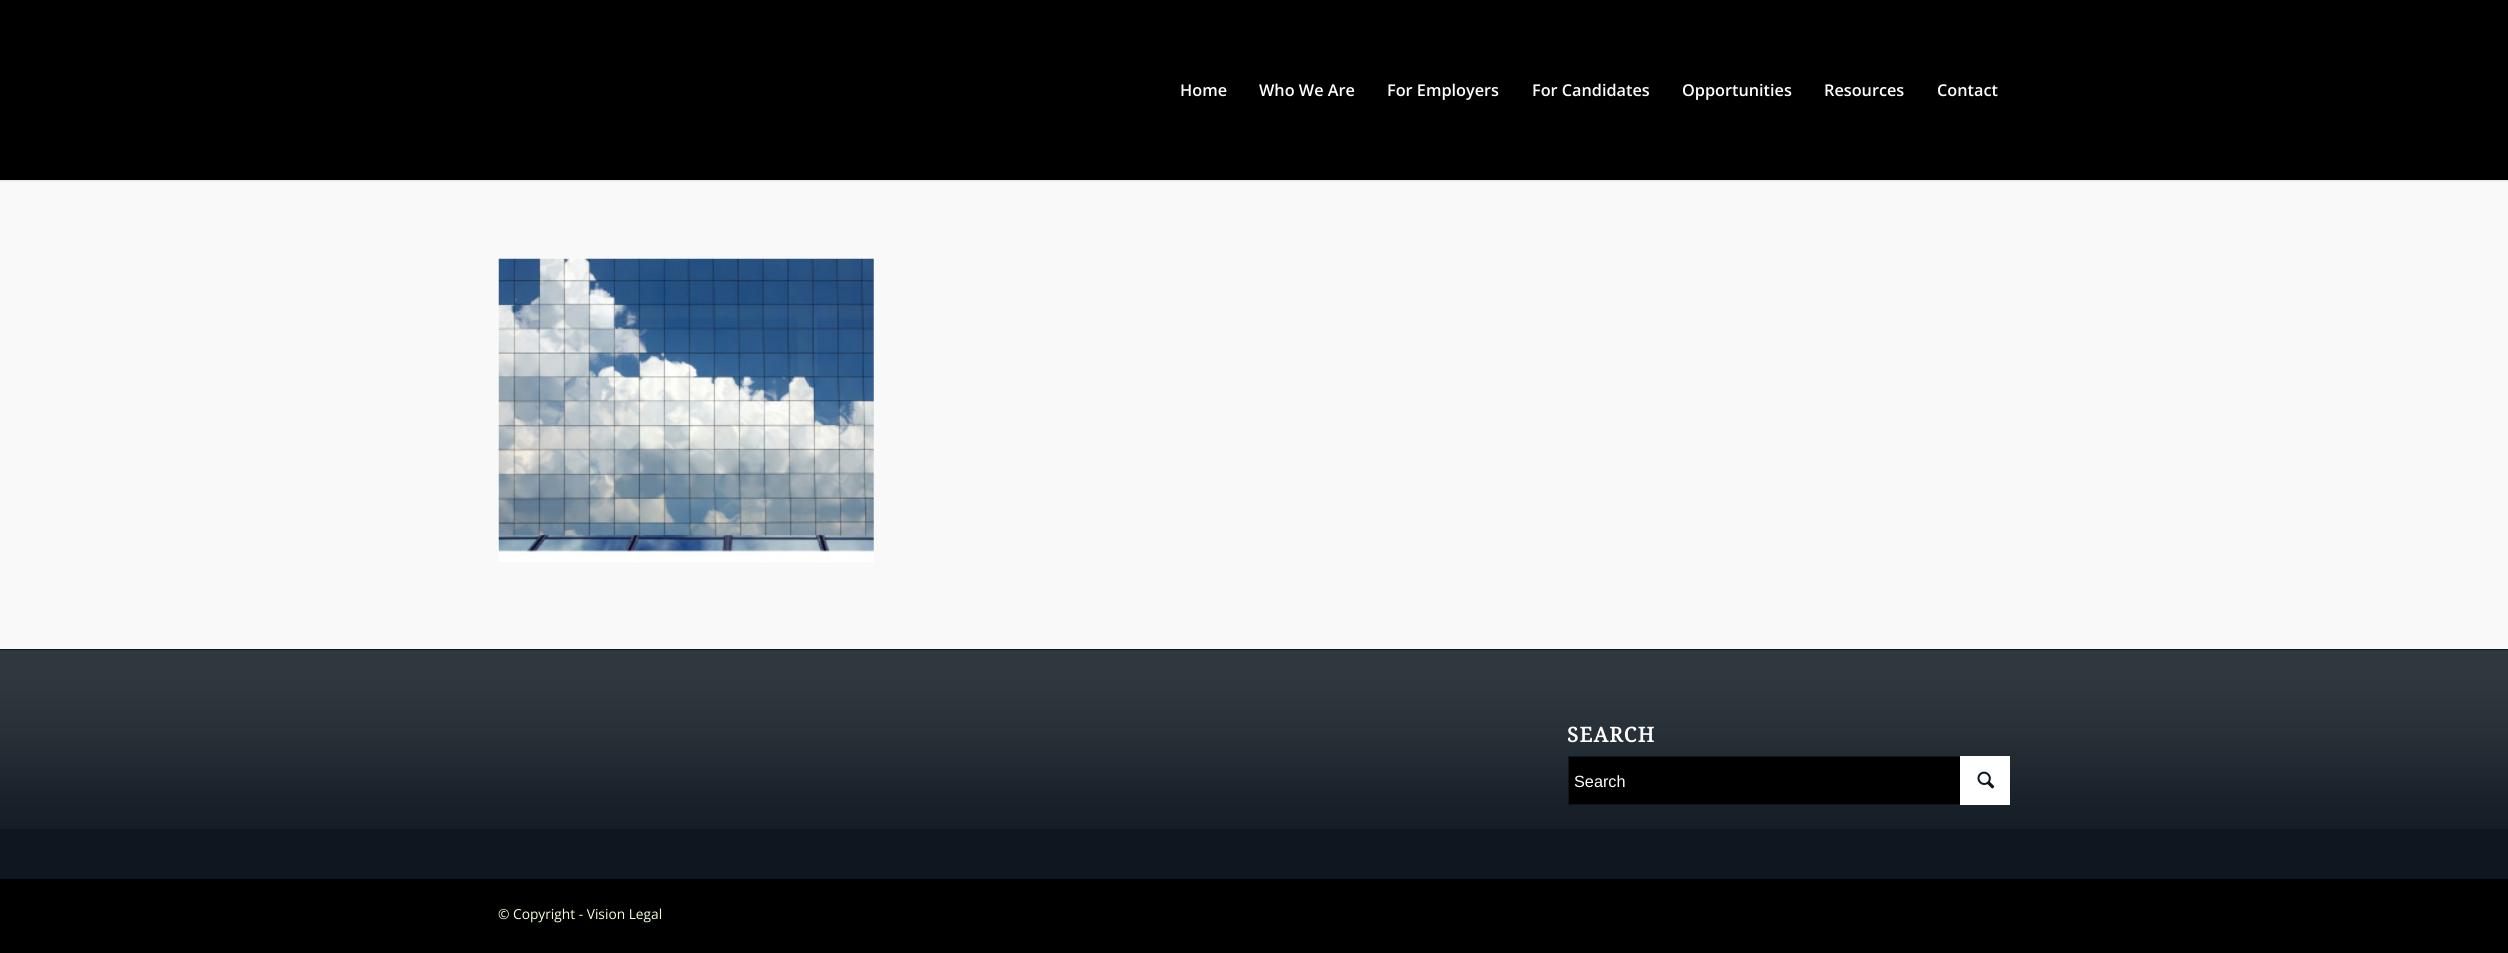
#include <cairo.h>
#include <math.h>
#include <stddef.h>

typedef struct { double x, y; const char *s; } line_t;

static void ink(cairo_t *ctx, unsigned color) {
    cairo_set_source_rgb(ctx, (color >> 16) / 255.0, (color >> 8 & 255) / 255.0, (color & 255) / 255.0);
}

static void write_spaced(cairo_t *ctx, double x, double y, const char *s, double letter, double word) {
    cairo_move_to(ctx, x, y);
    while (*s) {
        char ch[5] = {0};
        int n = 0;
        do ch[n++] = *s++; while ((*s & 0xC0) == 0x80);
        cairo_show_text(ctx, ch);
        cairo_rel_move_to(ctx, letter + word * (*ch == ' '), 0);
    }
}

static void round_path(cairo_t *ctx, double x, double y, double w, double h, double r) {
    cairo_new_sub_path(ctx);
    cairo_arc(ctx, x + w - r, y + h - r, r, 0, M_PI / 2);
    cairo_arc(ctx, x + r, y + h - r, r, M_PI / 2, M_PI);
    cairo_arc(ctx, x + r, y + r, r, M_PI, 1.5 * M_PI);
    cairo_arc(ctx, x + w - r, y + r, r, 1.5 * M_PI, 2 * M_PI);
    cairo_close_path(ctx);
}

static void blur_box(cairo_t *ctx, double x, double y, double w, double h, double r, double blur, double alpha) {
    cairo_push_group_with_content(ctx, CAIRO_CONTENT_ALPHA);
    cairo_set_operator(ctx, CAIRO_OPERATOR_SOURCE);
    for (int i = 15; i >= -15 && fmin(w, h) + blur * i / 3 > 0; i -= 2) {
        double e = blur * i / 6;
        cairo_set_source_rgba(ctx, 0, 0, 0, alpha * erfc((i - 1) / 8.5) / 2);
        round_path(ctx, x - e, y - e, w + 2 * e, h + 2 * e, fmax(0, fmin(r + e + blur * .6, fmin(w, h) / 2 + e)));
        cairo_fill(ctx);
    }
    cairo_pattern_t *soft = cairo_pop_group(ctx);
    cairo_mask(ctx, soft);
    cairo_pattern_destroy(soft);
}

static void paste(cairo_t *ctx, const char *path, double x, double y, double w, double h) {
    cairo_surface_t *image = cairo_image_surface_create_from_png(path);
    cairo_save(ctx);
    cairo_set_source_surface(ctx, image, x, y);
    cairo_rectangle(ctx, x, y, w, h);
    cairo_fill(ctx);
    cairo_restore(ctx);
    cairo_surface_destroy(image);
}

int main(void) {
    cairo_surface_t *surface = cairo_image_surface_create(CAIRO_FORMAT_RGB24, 2508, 953);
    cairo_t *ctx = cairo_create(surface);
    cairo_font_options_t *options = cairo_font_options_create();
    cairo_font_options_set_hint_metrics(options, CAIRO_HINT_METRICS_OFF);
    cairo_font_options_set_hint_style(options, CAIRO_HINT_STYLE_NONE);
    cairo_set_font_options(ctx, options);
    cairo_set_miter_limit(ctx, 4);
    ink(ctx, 0x000000);
    cairo_paint(ctx);
    ink(ctx, 0xF9F9F9);
    cairo_rectangle(ctx, 0, 180, 2508, 469);
    cairo_fill(ctx);
    cairo_save(ctx);
    cairo_rectangle(ctx, 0, 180, 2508, 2);
    cairo_clip(ctx);
    ink(ctx, 0x000000);
    blur_box(ctx, -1, -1, 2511, 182, 0, 1, 0.1);
    cairo_restore(ctx);
    cairo_select_font_face(ctx, "Open Sans SemiBold", CAIRO_FONT_SLANT_NORMAL, CAIRO_FONT_WEIGHT_NORMAL);
    cairo_set_font_size(ctx, 16.25);
    ink(ctx, 0xFFFFFF);
    {
        static const line_t items[] = {
            {1180, 96, "Home"},
            {1259, 96, "Who We Are"},
            {1387, 96, "For Employers"},
            {1532, 96, "For Candidates"},
            {1682, 96, "Opportunities"},
            {1824, 96, "Resources"},
            {1937, 96, "Contact"},
        };
        for (size_t i = 0; i < sizeof items / sizeof *items; i++) {
            cairo_move_to(ctx, items[i].x, items[i].y);
            cairo_show_text(ctx, items[i].s);
        }
    }
    paste(ctx, "media/1.png", 498, 258, 376, 304);
    ink(ctx, 0x0E1720);
    cairo_rectangle(ctx, 0, 649, 2508, 230);
    cairo_fill(ctx);
    paste(ctx, "media/2.png", 0, 650, 2508, 179);
    cairo_select_font_face(ctx, "Droid Serif", CAIRO_FONT_SLANT_NORMAL, CAIRO_FONT_WEIGHT_BOLD);
    cairo_set_font_size(ctx, 20.5);
    ink(ctx, 0xFFFFFF);
    write_spaced(ctx, 1567, 742, "SEARCH", 1.25, 0);
    ink(ctx, 0x000000);
    cairo_rectangle(ctx, 1569, 757, 391, 47);
    cairo_fill(ctx);
    cairo_rectangle(ctx, 1568.5, 756.5, 441, 48);
    ink(ctx, 0x0E1720);
    cairo_set_line_width(ctx, 1);
    cairo_stroke(ctx);
    cairo_select_font_face(ctx, "Liberation Sans", CAIRO_FONT_SLANT_NORMAL, CAIRO_FONT_WEIGHT_NORMAL);
    cairo_set_font_size(ctx, 16.25);
    ink(ctx, 0xFFFFFF);
    cairo_move_to(ctx, 1574, 787);
    cairo_show_text(ctx, "Search");
    cairo_rectangle(ctx, 1960, 756, 50, 49);
    cairo_fill(ctx);
    paste(ctx, "media/3.png", 1977, 771, 18, 18);
    cairo_select_font_face(ctx, "Open Sans", CAIRO_FONT_SLANT_NORMAL, CAIRO_FONT_WEIGHT_NORMAL);
    cairo_set_font_size(ctx, 13.75);
    ink(ctx, 0xF3FFDE);
    cairo_move_to(ctx, 498, 919);
    cairo_show_text(ctx, "© Copyright - Vision Legal");
    cairo_surface_write_to_png(surface, "image.png");
    cairo_font_options_destroy(options);
    cairo_destroy(ctx);
    cairo_surface_destroy(surface);
    return 0;
}
